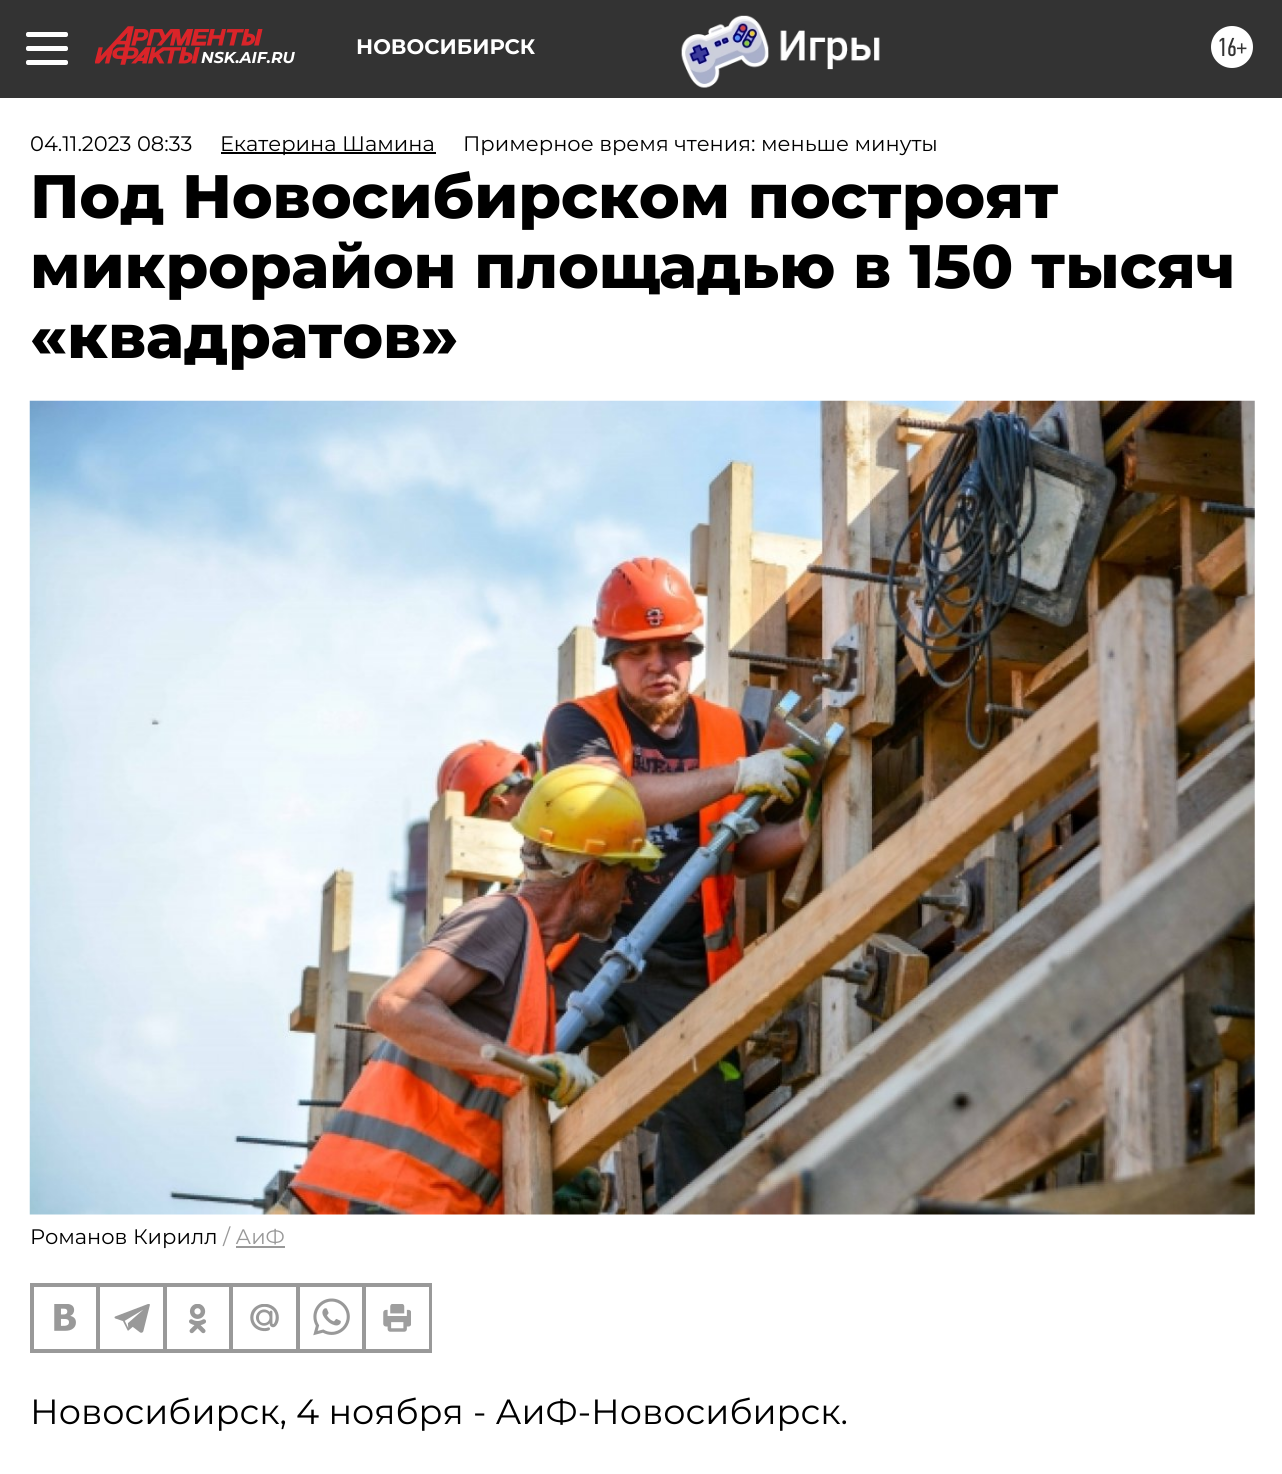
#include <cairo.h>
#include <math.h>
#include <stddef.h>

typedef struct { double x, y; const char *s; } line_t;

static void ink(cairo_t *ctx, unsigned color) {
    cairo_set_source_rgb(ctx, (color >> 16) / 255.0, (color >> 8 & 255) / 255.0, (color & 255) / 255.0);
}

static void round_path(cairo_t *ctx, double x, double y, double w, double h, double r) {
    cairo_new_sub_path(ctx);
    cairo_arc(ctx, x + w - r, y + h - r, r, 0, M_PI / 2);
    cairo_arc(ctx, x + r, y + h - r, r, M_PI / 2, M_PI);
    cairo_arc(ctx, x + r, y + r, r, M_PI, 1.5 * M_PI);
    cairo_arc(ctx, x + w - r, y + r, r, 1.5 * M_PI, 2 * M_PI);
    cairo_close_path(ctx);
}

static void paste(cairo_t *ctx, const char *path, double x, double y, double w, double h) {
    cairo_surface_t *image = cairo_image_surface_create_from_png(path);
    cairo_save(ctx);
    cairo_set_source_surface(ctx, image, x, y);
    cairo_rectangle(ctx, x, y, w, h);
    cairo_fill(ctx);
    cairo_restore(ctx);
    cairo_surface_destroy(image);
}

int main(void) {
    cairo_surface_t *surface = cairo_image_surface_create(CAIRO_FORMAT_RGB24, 1282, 1474);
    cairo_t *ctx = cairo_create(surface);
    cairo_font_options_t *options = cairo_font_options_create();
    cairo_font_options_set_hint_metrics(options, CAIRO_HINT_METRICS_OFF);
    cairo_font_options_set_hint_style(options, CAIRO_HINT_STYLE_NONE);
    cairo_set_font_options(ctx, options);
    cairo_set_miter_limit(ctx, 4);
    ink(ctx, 0xFFFFFF);
    cairo_paint(ctx);
    ink(ctx, 0x333333);
    cairo_rectangle(ctx, 0, 0, 1282, 98);
    cairo_fill(ctx);
    ink(ctx, 0xFFFFFF);
    round_path(ctx, 26, 32, 42, 5, 2);
    cairo_fill(ctx);
    round_path(ctx, 26, 46, 42, 5, 2);
    cairo_fill(ctx);
    round_path(ctx, 26, 60, 42, 5, 2);
    cairo_fill(ctx);
    cairo_select_font_face(ctx, "Montserrat", CAIRO_FONT_SLANT_NORMAL, CAIRO_FONT_WEIGHT_BOLD);
    cairo_set_font_size(ctx, 21);
    cairo_move_to(ctx, 356, 54);
    cairo_show_text(ctx, "НОВОСИБИРСК");
    paste(ctx, "media/1.png", 681, 15, 199, 73);
    cairo_arc(ctx, 1232, 47, 21, 0, 2 * M_PI);
    cairo_fill(ctx);
    cairo_select_font_face(ctx, "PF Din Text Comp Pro", CAIRO_FONT_SLANT_NORMAL, CAIRO_FONT_WEIGHT_NORMAL);
    cairo_set_font_size(ctx, 26);
    ink(ctx, 0x333333);
    cairo_move_to(ctx, 1217, 56);
    cairo_show_text(ctx, "16+");
    paste(ctx, "media/2.png", 95, 26, 168, 39);
    cairo_select_font_face(ctx, "Montserrat", CAIRO_FONT_SLANT_ITALIC, CAIRO_FONT_WEIGHT_BOLD);
    cairo_set_font_size(ctx, 15.75);
    ink(ctx, 0xFFFFFF);
    cairo_move_to(ctx, 201, 63);
    cairo_show_text(ctx, "NSK.AIF.RU");
    cairo_select_font_face(ctx, "Montserrat", CAIRO_FONT_SLANT_NORMAL, CAIRO_FONT_WEIGHT_NORMAL);
    cairo_set_font_size(ctx, 21);
    ink(ctx, 0x000000);
    cairo_move_to(ctx, 30, 151);
    cairo_show_text(ctx, "04.11.2023 08:33");
    cairo_rectangle(ctx, 221, 152, 215, 2);
    cairo_fill(ctx);
    cairo_move_to(ctx, 220, 151);
    cairo_show_text(ctx, "Екатерина Шамина");
    cairo_move_to(ctx, 463, 151);
    cairo_show_text(ctx, "Примерное время чтения: меньше минуты");
    cairo_select_font_face(ctx, "Montserrat ExtraBold", CAIRO_FONT_SLANT_NORMAL, CAIRO_FONT_WEIGHT_NORMAL);
    cairo_set_font_size(ctx, 61.25);
    {
        static const line_t items[] = {
            {30, 218, "Под Новосибирском построят"},
            {30, 288, "микрорайон площадью в 150 тысяч"},
            {30, 358, "«квадратов»"},
        };
        for (size_t i = 0; i < sizeof items / sizeof *items; i++) {
            cairo_move_to(ctx, items[i].x, items[i].y);
            cairo_show_text(ctx, items[i].s);
        }
    }
    paste(ctx, "media/3.png", 29, 400, 1226, 815);
    cairo_select_font_face(ctx, "Montserrat", CAIRO_FONT_SLANT_NORMAL, CAIRO_FONT_WEIGHT_NORMAL);
    cairo_set_font_size(ctx, 21);
    cairo_move_to(ctx, 30, 1244);
    cairo_show_text(ctx, "Романов Кирилл");
    ink(ctx, 0x999999);
    cairo_move_to(ctx, 223, 1244);
    cairo_show_text(ctx, "/ АиФ");
    cairo_rectangle(ctx, 236, 1246, 49, 2);
    cairo_fill(ctx);
    cairo_rectangle(ctx, 31, 1284, 400, 68);
    cairo_stroke(ctx);
    cairo_rectangle(ctx, 33, 1286, 64, 64);
    cairo_stroke(ctx);
    paste(ctx, "media/4.png", 54, 1304, 22, 27);
    cairo_rectangle(ctx, 99, 1286, 65, 64);
    cairo_stroke(ctx);
    paste(ctx, "media/5.png", 114, 1304, 36, 29);
    cairo_rectangle(ctx, 166, 1286, 64, 64);
    cairo_stroke(ctx);
    paste(ctx, "media/6.png", 189, 1304, 17, 30);
    cairo_rectangle(ctx, 232, 1286, 65, 64);
    cairo_stroke(ctx);
    paste(ctx, "media/7.png", 250, 1304, 29, 28);
    cairo_rectangle(ctx, 299, 1286, 64, 64);
    cairo_stroke(ctx);
    paste(ctx, "media/8.png", 313, 1298, 37, 38);
    cairo_rectangle(ctx, 365, 1286, 65, 64);
    cairo_stroke(ctx);
    paste(ctx, "media/9.png", 383, 1304, 28, 28);
    cairo_set_font_size(ctx, 35);
    ink(ctx, 0x000000);
    cairo_move_to(ctx, 30, 1424);
    cairo_show_text(ctx, "Новосибирск, 4 ноября - АиФ-Новосибирск.");
    cairo_surface_write_to_png(surface, "image.png");
    cairo_font_options_destroy(options);
    cairo_destroy(ctx);
    cairo_surface_destroy(surface);
    return 0;
}
